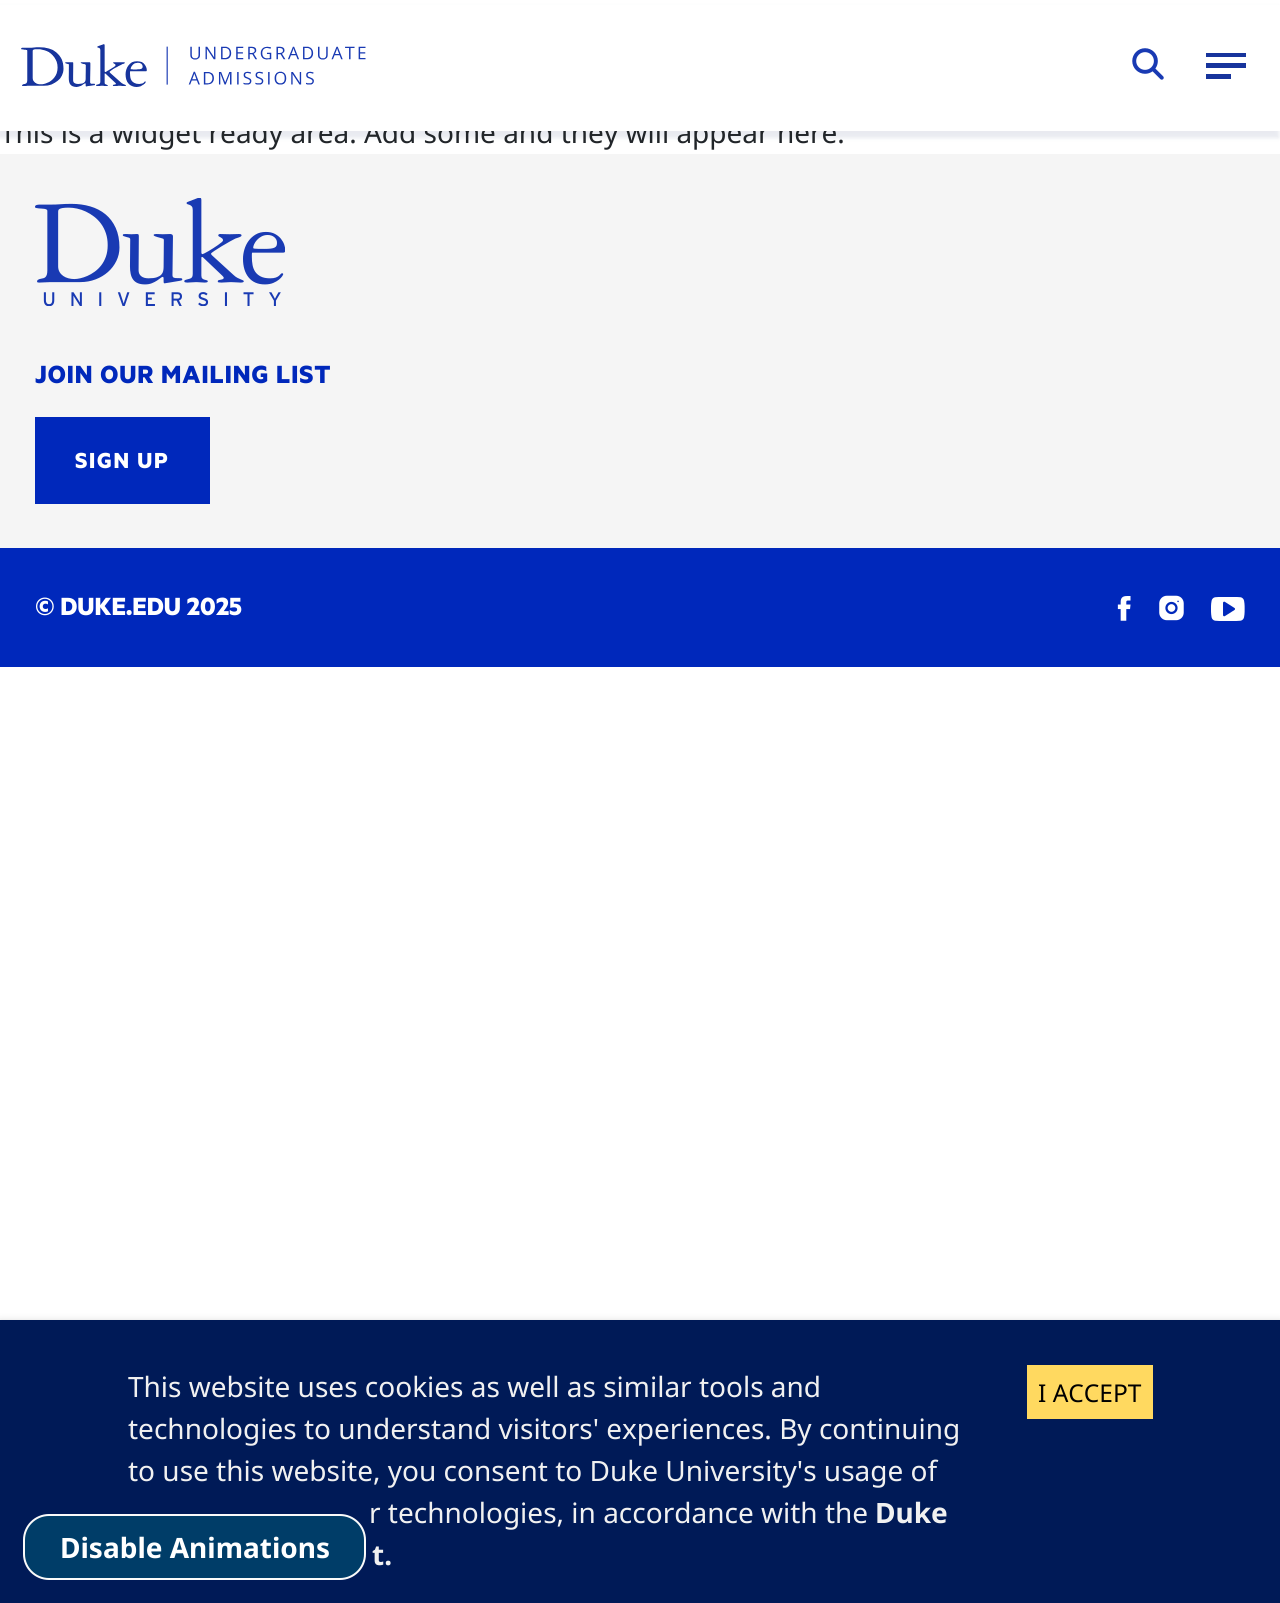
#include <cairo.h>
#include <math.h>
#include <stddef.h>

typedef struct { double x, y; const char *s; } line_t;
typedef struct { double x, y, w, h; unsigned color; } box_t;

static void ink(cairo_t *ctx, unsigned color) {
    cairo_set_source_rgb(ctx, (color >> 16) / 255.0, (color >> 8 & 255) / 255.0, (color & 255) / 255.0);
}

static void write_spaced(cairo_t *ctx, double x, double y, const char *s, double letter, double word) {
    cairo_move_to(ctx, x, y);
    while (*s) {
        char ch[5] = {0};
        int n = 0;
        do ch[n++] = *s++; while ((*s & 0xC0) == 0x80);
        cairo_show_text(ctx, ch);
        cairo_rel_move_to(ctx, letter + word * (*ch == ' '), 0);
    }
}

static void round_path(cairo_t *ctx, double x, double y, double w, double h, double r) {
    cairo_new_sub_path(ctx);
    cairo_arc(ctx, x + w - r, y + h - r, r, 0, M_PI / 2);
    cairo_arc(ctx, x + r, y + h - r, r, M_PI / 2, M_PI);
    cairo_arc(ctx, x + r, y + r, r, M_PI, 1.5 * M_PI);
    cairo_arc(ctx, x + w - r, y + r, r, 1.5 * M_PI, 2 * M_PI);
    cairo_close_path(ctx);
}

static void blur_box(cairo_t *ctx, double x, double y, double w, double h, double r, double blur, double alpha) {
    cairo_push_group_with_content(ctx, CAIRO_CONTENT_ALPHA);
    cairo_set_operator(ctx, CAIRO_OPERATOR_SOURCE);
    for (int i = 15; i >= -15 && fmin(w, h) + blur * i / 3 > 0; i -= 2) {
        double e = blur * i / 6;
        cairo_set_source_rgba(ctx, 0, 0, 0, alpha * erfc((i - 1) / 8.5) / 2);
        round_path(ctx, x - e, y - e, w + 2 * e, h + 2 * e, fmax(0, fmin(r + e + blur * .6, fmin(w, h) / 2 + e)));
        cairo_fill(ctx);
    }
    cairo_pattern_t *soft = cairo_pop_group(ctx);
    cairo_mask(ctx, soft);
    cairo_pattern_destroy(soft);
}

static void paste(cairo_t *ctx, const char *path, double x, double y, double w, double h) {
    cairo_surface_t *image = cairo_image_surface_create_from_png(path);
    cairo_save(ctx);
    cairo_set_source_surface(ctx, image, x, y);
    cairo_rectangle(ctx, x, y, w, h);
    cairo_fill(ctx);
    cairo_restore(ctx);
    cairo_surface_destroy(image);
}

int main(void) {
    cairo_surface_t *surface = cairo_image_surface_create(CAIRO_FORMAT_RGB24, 1280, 1603);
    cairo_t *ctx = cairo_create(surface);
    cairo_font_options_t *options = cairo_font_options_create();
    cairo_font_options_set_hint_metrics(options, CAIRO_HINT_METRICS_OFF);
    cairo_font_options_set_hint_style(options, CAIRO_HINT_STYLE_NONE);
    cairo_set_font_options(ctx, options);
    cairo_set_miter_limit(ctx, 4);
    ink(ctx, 0xFFFFFF);
    cairo_paint(ctx);
    ink(ctx, 0x334077);
    blur_box(ctx, -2, 7, 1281, 131, 0, 2, 0.11);
    cairo_select_font_face(ctx, "Noto Sans", CAIRO_FONT_SLANT_NORMAL, CAIRO_FONT_WEIGHT_NORMAL);
    cairo_set_font_size(ctx, 28);
    ink(ctx, 0x212529);
    cairo_move_to(ctx, 0, 143);
    cairo_show_text(ctx, "This is a widget ready area. Add some and they will appear here.");
    ink(ctx, 0xFFFFFF);
    cairo_rectangle(ctx, 0, 5, 1280, 126);
    cairo_fill(ctx);
    paste(ctx, "media/1.png", 21, 44, 345, 43);
    paste(ctx, "media/2.png", 1132, 48, 32, 32);
    {
        static const box_t items[] = {
            {1206, 53, 40, 4, 0x17349C},
            {1206, 63, 40, 5, 0x17349C},
            {1206, 74, 25, 5, 0x17349C},
            {0, 154, 1280, 394, 0xF5F5F5},
        };
        for (size_t i = 0; i < sizeof items / sizeof *items; i++) {
            ink(ctx, items[i].color);
            cairo_rectangle(ctx, items[i].x, items[i].y, items[i].w, items[i].h);
            cairo_fill(ctx);
        }
    }
    paste(ctx, "media/3.png", 35, 198, 250, 108);
    cairo_select_font_face(ctx, "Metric", CAIRO_FONT_SLANT_NORMAL, CAIRO_FONT_WEIGHT_BOLD);
    ink(ctx, 0x0028BB);
    write_spaced(ctx, 35, 383, "JOIN OUR MAILING LIST", 1, 0);
    cairo_rectangle(ctx, 35, 417, 175, 87);
    cairo_fill(ctx);
    cairo_set_font_size(ctx, 24.5);
    ink(ctx, 0xFFFFFF);
    write_spaced(ctx, 75, 468, "SIGN UP", 1.75, 0);
    ink(ctx, 0x0028BB);
    cairo_rectangle(ctx, 0, 548, 1280, 119);
    cairo_fill(ctx);
    cairo_set_font_size(ctx, 28);
    ink(ctx, 0xFFFFFF);
    cairo_move_to(ctx, 35, 615);
    cairo_show_text(ctx, "© DUKE.EDU 2025");
    paste(ctx, "media/4.png", 1117, 596, 14, 25);
    paste(ctx, "media/5.png", 1159, 595, 25, 26);
    paste(ctx, "media/6.png", 1211, 597, 34, 24);
    ink(ctx, 0x000000);
    blur_box(ctx, 0, 1323, 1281, 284, 0, 4.5, 0.26);
    ink(ctx, 0x001A57);
    cairo_rectangle(ctx, 0, 1320, 1280, 283);
    cairo_fill(ctx);
    cairo_select_font_face(ctx, "Noto Sans", CAIRO_FONT_SLANT_NORMAL, CAIRO_FONT_WEIGHT_NORMAL);
    ink(ctx, 0xF1F1F1);
    {
        static const line_t items[] = {
            {128, 1397, "This website uses cookies as well as similar tools and"},
            {128, 1439, "technologies to understand visitors' experiences. By continuing"},
            {128, 1481, "to use this website, you consent to Duke University's usage of"},
            {369, 1523, "r technologies, in accordance with the"},
        };
        for (size_t i = 0; i < sizeof items / sizeof *items; i++) {
            cairo_move_to(ctx, items[i].x, items[i].y);
            cairo_show_text(ctx, items[i].s);
        }
    }
    cairo_select_font_face(ctx, "Noto Sans", CAIRO_FONT_SLANT_NORMAL, CAIRO_FONT_WEIGHT_BOLD);
    cairo_move_to(ctx, 875, 1523);
    cairo_show_text(ctx, "Duke");
    cairo_move_to(ctx, 372, 1565);
    cairo_show_text(ctx, "t.");
    ink(ctx, 0xFFD960);
    cairo_rectangle(ctx, 1027, 1365, 126, 54);
    cairo_fill(ctx);
    cairo_select_font_face(ctx, "Noto Sans", CAIRO_FONT_SLANT_NORMAL, CAIRO_FONT_WEIGHT_NORMAL);
    cairo_set_font_size(ctx, 24.5);
    ink(ctx, 0x000000);
    cairo_move_to(ctx, 1038, 1402);
    cairo_show_text(ctx, "I ACCEPT");
    ink(ctx, 0x003D68);
    round_path(ctx, 24, 1515, 341, 64, 25);
    cairo_fill_preserve(ctx);
    ink(ctx, 0xFAFAFA);
    cairo_stroke(ctx);
    cairo_select_font_face(ctx, "Noto Sans", CAIRO_FONT_SLANT_NORMAL, CAIRO_FONT_WEIGHT_BOLD);
    cairo_set_font_size(ctx, 28);
    ink(ctx, 0xFFFFFF);
    cairo_move_to(ctx, 60, 1558);
    cairo_show_text(ctx, "Disable Animations");
    cairo_surface_write_to_png(surface, "image.png");
    cairo_font_options_destroy(options);
    cairo_destroy(ctx);
    cairo_surface_destroy(surface);
    return 0;
}
